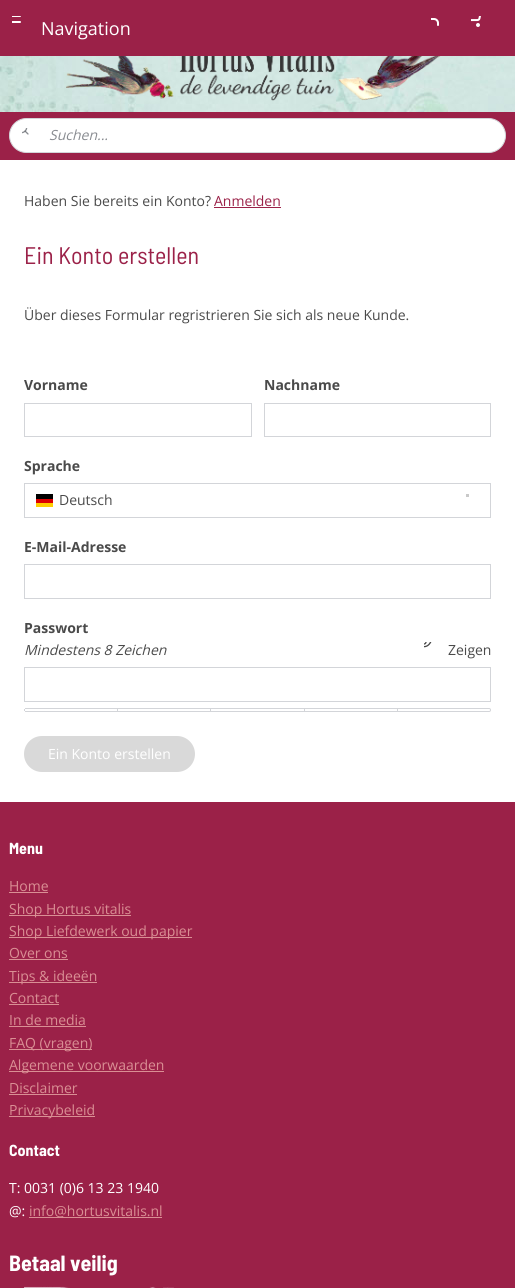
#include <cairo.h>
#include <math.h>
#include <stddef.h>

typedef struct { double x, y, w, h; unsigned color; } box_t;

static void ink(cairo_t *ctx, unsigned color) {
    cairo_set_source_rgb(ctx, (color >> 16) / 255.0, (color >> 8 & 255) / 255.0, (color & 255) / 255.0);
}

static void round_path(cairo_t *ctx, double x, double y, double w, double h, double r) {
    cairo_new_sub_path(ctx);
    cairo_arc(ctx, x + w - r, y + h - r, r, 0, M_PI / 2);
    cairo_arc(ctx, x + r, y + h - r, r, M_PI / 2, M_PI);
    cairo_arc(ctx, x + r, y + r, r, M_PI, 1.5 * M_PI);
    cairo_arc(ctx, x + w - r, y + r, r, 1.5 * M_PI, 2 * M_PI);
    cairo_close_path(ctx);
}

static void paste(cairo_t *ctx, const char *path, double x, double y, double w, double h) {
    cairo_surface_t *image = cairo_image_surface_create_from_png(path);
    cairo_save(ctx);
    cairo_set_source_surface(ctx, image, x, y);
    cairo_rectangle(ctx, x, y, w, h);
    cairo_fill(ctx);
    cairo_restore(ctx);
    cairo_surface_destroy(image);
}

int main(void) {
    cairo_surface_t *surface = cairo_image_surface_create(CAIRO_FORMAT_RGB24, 515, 1288);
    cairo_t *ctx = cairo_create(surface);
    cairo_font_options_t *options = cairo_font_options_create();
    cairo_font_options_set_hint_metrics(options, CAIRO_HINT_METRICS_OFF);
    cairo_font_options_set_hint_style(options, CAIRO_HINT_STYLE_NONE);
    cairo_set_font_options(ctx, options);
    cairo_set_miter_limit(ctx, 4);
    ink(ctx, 0xFFFFFF);
    cairo_paint(ctx);
    ink(ctx, 0x9B2148);
    cairo_rectangle(ctx, 0, 0, 515, 56);
    cairo_fill(ctx);
    paste(ctx, "media/1.png", 12, 16, 9, 7);
    cairo_select_font_face(ctx, "Open Sans", CAIRO_FONT_SLANT_NORMAL, CAIRO_FONT_WEIGHT_NORMAL);
    cairo_set_font_size(ctx, 18);
    ink(ctx, 0xFFFFFF);
    cairo_move_to(ctx, 41, 35);
    cairo_show_text(ctx, "Navigation");
    paste(ctx, "media/2.png", 431, 18, 8, 8);
    paste(ctx, "media/3.png", 471, 16, 10, 11);
    paste(ctx, "media/4.png", 0, 56, 515, 56);
    paste(ctx, "media/5.png", 66, 56, 375, 45);
    ink(ctx, 0x9B2148);
    cairo_rectangle(ctx, 0, 112, 515, 48);
    cairo_fill(ctx);
    ink(ctx, 0xFFFFFF);
    round_path(ctx, 9.5, 118.5, 496, 34, 17);
    cairo_fill_preserve(ctx);
    ink(ctx, 0xD3D5D9);
    cairo_set_line_width(ctx, 1);
    cairo_stroke(ctx);
    paste(ctx, "media/6.png", 22, 128, 7, 7);
    cairo_select_font_face(ctx, "Open Sans", CAIRO_FONT_SLANT_ITALIC, CAIRO_FONT_WEIGHT_NORMAL);
    cairo_set_font_size(ctx, 14);
    ink(ctx, 0x898C91);
    cairo_move_to(ctx, 49, 140);
    cairo_show_text(ctx, "Suchen...");
    cairo_select_font_face(ctx, "Open Sans", CAIRO_FONT_SLANT_NORMAL, CAIRO_FONT_WEIGHT_NORMAL);
    ink(ctx, 0x4A4A4A);
    cairo_move_to(ctx, 24, 206);
    cairo_show_text(ctx, "Haben Sie bereits ein Konto?");
    ink(ctx, 0x9B2148);
    cairo_move_to(ctx, 214, 206);
    cairo_show_text(ctx, "Anmelden");
    cairo_rectangle(ctx, 214, 207, 67, 1);
    cairo_fill(ctx);
    cairo_select_font_face(ctx, "Barlow Semi Condensed", CAIRO_FONT_SLANT_NORMAL, CAIRO_FONT_WEIGHT_NORMAL);
    cairo_set_font_size(ctx, 24);
    cairo_move_to(ctx, 24, 264);
    cairo_show_text(ctx, "Ein Konto erstellen");
    cairo_select_font_face(ctx, "Open Sans", CAIRO_FONT_SLANT_NORMAL, CAIRO_FONT_WEIGHT_NORMAL);
    cairo_set_font_size(ctx, 14);
    ink(ctx, 0x4A4A4A);
    cairo_move_to(ctx, 24, 320);
    cairo_show_text(ctx, "Über dieses Formular regristrieren Sie sich als neue Kunde.");
    cairo_select_font_face(ctx, "Open Sans", CAIRO_FONT_SLANT_NORMAL, CAIRO_FONT_WEIGHT_BOLD);
    cairo_move_to(ctx, 24, 390);
    cairo_show_text(ctx, "Vorname");
    cairo_rectangle(ctx, 24.5, 403.5, 227, 33);
    ink(ctx, 0xD3D5D9);
    cairo_stroke(ctx);
    ink(ctx, 0x4A4A4A);
    cairo_move_to(ctx, 264, 390);
    cairo_show_text(ctx, "Nachname");
    cairo_rectangle(ctx, 264.5, 403.5, 226, 33);
    ink(ctx, 0xD3D5D9);
    cairo_stroke(ctx);
    ink(ctx, 0x4A4A4A);
    cairo_move_to(ctx, 24, 471);
    cairo_show_text(ctx, "Sprache");
    cairo_rectangle(ctx, 24.5, 483.5, 466, 34);
    ink(ctx, 0xD3D5D9);
    cairo_stroke(ctx);
    {
        static const box_t items[] = {
            {36, 503, 17, 4, 0xFFCE00},
            {36, 494, 17, 5, 0x000000},
            {36, 499, 17, 4, 0xDD0000},
        };
        for (size_t i = 0; i < sizeof items / sizeof *items; i++) {
            ink(ctx, items[i].color);
            cairo_rectangle(ctx, items[i].x, items[i].y, items[i].w, items[i].h);
            cairo_fill(ctx);
        }
    }
    cairo_select_font_face(ctx, "Open Sans", CAIRO_FONT_SLANT_NORMAL, CAIRO_FONT_WEIGHT_NORMAL);
    ink(ctx, 0x4A4A4A);
    cairo_move_to(ctx, 59, 505);
    cairo_show_text(ctx, "Deutsch");
    ink(ctx, 0xC9C9C9);
    cairo_rectangle(ctx, 466, 494, 3, 3);
    cairo_fill(ctx);
    cairo_select_font_face(ctx, "Open Sans", CAIRO_FONT_SLANT_NORMAL, CAIRO_FONT_WEIGHT_BOLD);
    ink(ctx, 0x4A4A4A);
    cairo_move_to(ctx, 24, 552);
    cairo_show_text(ctx, "E-Mail-Adresse");
    cairo_rectangle(ctx, 24.5, 564.5, 466, 34);
    ink(ctx, 0xD3D5D9);
    cairo_stroke(ctx);
    ink(ctx, 0x4A4A4A);
    cairo_move_to(ctx, 24, 633);
    cairo_show_text(ctx, "Passwort");
    cairo_select_font_face(ctx, "Open Sans", CAIRO_FONT_SLANT_ITALIC, CAIRO_FONT_WEIGHT_NORMAL);
    cairo_move_to(ctx, 24, 655);
    cairo_show_text(ctx, "Mindestens 8 Zeichen");
    paste(ctx, "media/7.png", 424, 642, 8, 6);
    cairo_select_font_face(ctx, "Open Sans", CAIRO_FONT_SLANT_NORMAL, CAIRO_FONT_WEIGHT_NORMAL);
    cairo_move_to(ctx, 448, 655);
    cairo_show_text(ctx, "Zeigen");
    cairo_rectangle(ctx, 24.5, 667.5, 466, 34);
    ink(ctx, 0xD3D5D9);
    cairo_stroke(ctx);
    {
        static const box_t items[] = {
            {25, 708, 372, 1, 0xD3D5D9},
            {25, 711, 372, 1, 0xD3D5D9},
            {24, 709, 1, 2, 0xD3D5D9},
            {117, 708, 1, 4, 0xD3D5D9},
            {210, 708, 1, 4, 0xD3D5D9},
            {304, 708, 1, 4, 0xD3D5D9},
        };
        for (size_t i = 0; i < sizeof items / sizeof *items; i++) {
            ink(ctx, items[i].color);
            cairo_rectangle(ctx, items[i].x, items[i].y, items[i].w, items[i].h);
            cairo_fill(ctx);
        }
    }
    cairo_new_path(ctx);
    cairo_move_to(ctx, 397.5, 708.5);
    cairo_line_to(ctx, 489, 708.5);
    cairo_curve_to(ctx, 490, 708.5, 490.5, 709, 490.5, 710);
    cairo_curve_to(ctx, 490.5, 711, 490, 711.5, 489, 711.5);
    cairo_line_to(ctx, 397.5, 711.5);
    cairo_close_path(ctx);
    cairo_stroke(ctx);
    ink(ctx, 0xD9D9D9);
    round_path(ctx, 24, 736, 171, 36, 18);
    cairo_fill(ctx);
    ink(ctx, 0xFFFFFF);
    cairo_move_to(ctx, 48, 759);
    cairo_show_text(ctx, "Ein Konto erstellen");
    ink(ctx, 0x9B2148);
    cairo_rectangle(ctx, 0, 802, 515, 486);
    cairo_fill(ctx);
    cairo_select_font_face(ctx, "Barlow Semi Condensed", CAIRO_FONT_SLANT_NORMAL, CAIRO_FONT_WEIGHT_BOLD);
    cairo_set_font_size(ctx, 16);
    ink(ctx, 0xFFFFFF);
    cairo_move_to(ctx, 9, 854);
    cairo_show_text(ctx, "Menu");
    cairo_select_font_face(ctx, "Open Sans", CAIRO_FONT_SLANT_NORMAL, CAIRO_FONT_WEIGHT_NORMAL);
    cairo_set_font_size(ctx, 14);
    ink(ctx, 0xDA8F94);
    cairo_move_to(ctx, 9, 891);
    cairo_show_text(ctx, "Home");
    cairo_rectangle(ctx, 9, 892, 39, 1);
    cairo_fill(ctx);
    cairo_rectangle(ctx, 9, 915, 122, 1);
    cairo_fill(ctx);
    cairo_move_to(ctx, 9, 914);
    cairo_show_text(ctx, "Shop Hortus vitalis");
    cairo_rectangle(ctx, 9, 937, 183, 1);
    cairo_fill(ctx);
    cairo_move_to(ctx, 9, 936);
    cairo_show_text(ctx, "Shop Liefdewerk oud papier");
    cairo_move_to(ctx, 9, 958);
    cairo_show_text(ctx, "Over ons");
    cairo_rectangle(ctx, 9, 959, 59, 1);
    cairo_fill(ctx);
    cairo_rectangle(ctx, 9, 982, 88, 1);
    cairo_fill(ctx);
    cairo_move_to(ctx, 9, 981);
    cairo_show_text(ctx, "Tips & ideeën");
    cairo_move_to(ctx, 9, 1003);
    cairo_show_text(ctx, "Contact");
    cairo_rectangle(ctx, 9, 1004, 50, 1);
    cairo_fill(ctx);
    cairo_move_to(ctx, 9, 1025);
    cairo_show_text(ctx, "In de media");
    cairo_rectangle(ctx, 9, 1026, 77, 1);
    cairo_fill(ctx);
    cairo_rectangle(ctx, 9, 1049, 83, 1);
    cairo_fill(ctx);
    cairo_move_to(ctx, 9, 1048);
    cairo_show_text(ctx, "FAQ (vragen)");
    cairo_rectangle(ctx, 9, 1071, 155, 1);
    cairo_fill(ctx);
    cairo_move_to(ctx, 9, 1070);
    cairo_show_text(ctx, "Algemene voorwaarden");
    cairo_move_to(ctx, 9, 1093);
    cairo_show_text(ctx, "Disclaimer");
    cairo_rectangle(ctx, 9, 1094, 68, 1);
    cairo_fill(ctx);
    cairo_rectangle(ctx, 9, 1116, 86, 1);
    cairo_fill(ctx);
    cairo_move_to(ctx, 9, 1115);
    cairo_show_text(ctx, "Privacybeleid");
    cairo_select_font_face(ctx, "Barlow Semi Condensed", CAIRO_FONT_SLANT_NORMAL, CAIRO_FONT_WEIGHT_BOLD);
    cairo_set_font_size(ctx, 16);
    ink(ctx, 0xFFFFFF);
    cairo_move_to(ctx, 9, 1156);
    cairo_show_text(ctx, "Contact");
    cairo_select_font_face(ctx, "Open Sans", CAIRO_FONT_SLANT_NORMAL, CAIRO_FONT_WEIGHT_NORMAL);
    cairo_set_font_size(ctx, 14);
    cairo_move_to(ctx, 9, 1193);
    cairo_show_text(ctx, "T: 0031 (0)6 13 23 1940");
    cairo_move_to(ctx, 9, 1216);
    cairo_show_text(ctx, "@:");
    ink(ctx, 0xDA8F94);
    cairo_rectangle(ctx, 29, 1217, 133, 1);
    cairo_fill(ctx);
    cairo_move_to(ctx, 29, 1216);
    cairo_show_text(ctx, "info@hortusvitalis.nl");
    cairo_select_font_face(ctx, "Barlow Semi Condensed", CAIRO_FONT_SLANT_NORMAL, CAIRO_FONT_WEIGHT_BOLD);
    cairo_set_font_size(ctx, 22);
    ink(ctx, 0xFFFFFF);
    cairo_move_to(ctx, 9, 1271);
    cairo_show_text(ctx, "Betaal veilig");
    paste(ctx, "media/8.png", 24, 1286, 150, 2);
    cairo_surface_write_to_png(surface, "image.png");
    cairo_font_options_destroy(options);
    cairo_destroy(ctx);
    cairo_surface_destroy(surface);
    return 0;
}
